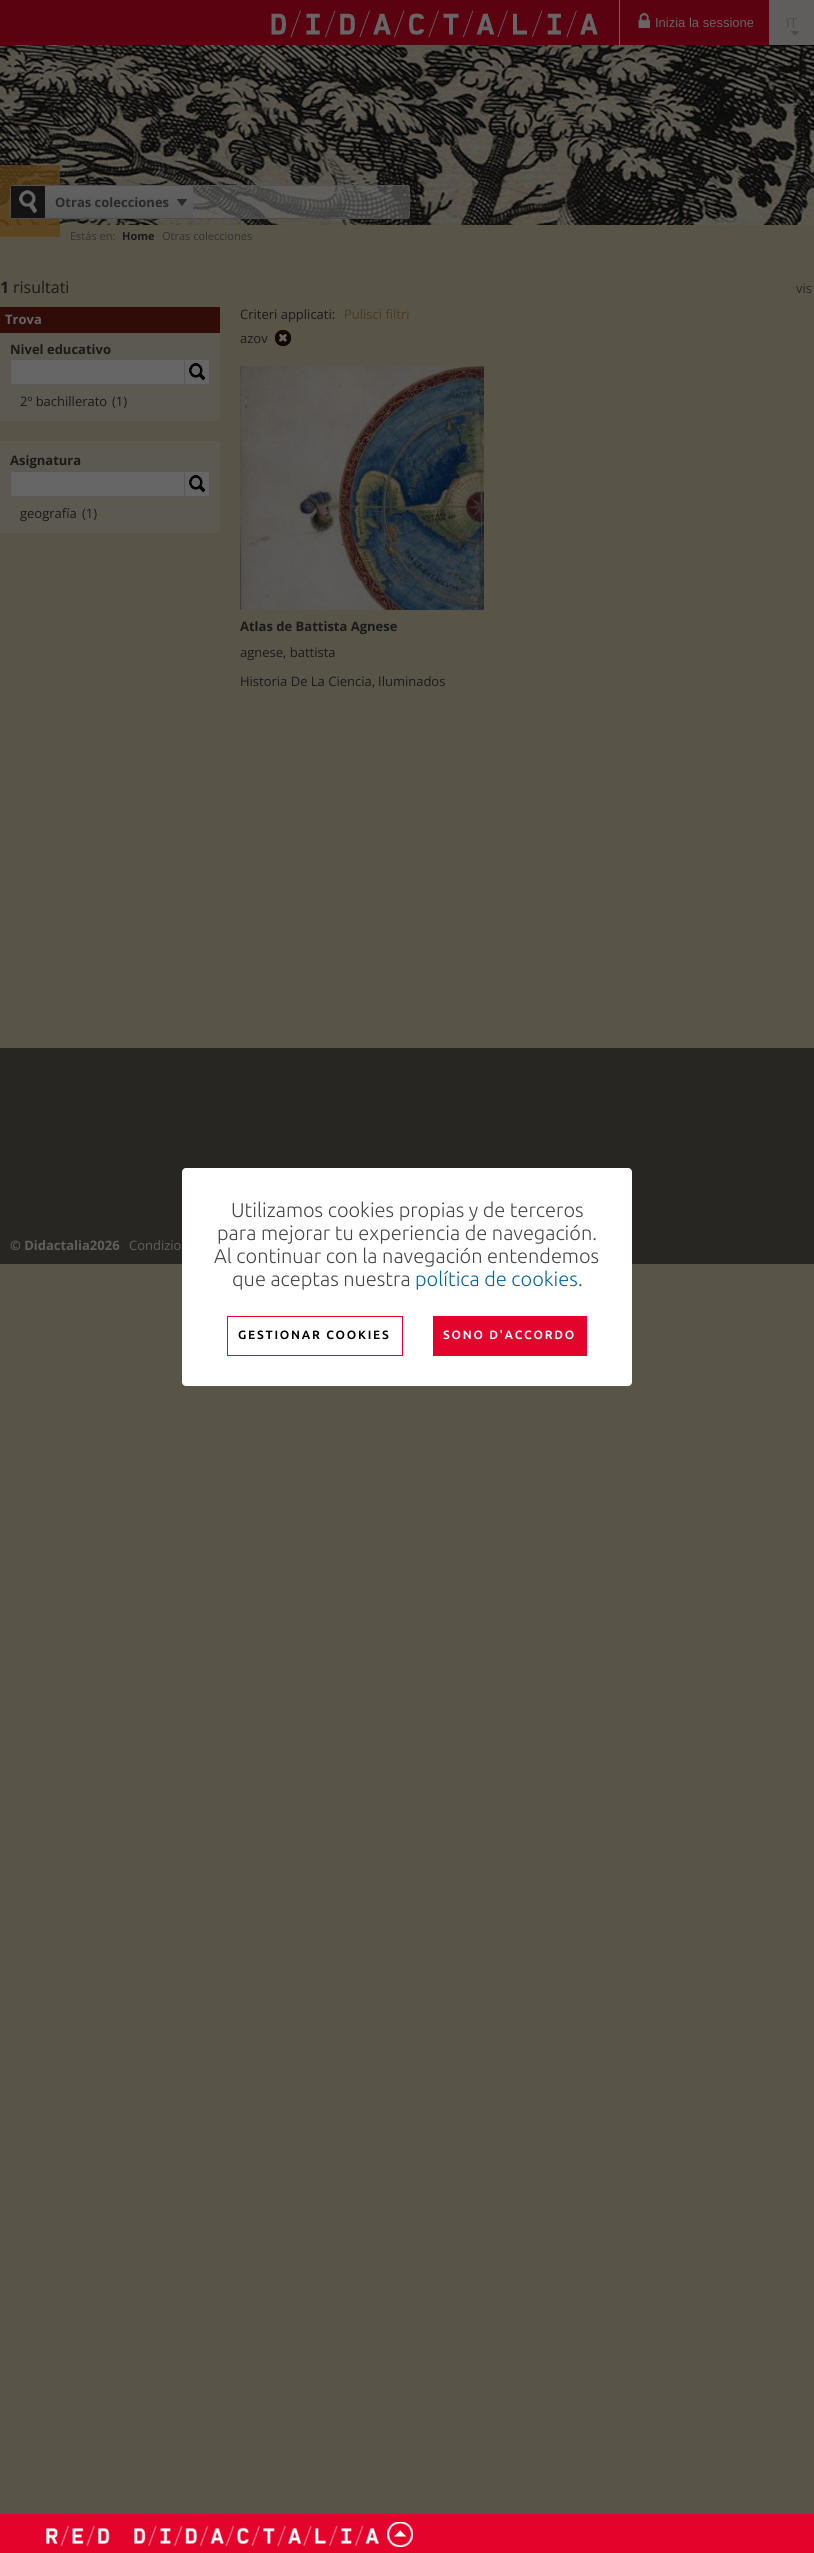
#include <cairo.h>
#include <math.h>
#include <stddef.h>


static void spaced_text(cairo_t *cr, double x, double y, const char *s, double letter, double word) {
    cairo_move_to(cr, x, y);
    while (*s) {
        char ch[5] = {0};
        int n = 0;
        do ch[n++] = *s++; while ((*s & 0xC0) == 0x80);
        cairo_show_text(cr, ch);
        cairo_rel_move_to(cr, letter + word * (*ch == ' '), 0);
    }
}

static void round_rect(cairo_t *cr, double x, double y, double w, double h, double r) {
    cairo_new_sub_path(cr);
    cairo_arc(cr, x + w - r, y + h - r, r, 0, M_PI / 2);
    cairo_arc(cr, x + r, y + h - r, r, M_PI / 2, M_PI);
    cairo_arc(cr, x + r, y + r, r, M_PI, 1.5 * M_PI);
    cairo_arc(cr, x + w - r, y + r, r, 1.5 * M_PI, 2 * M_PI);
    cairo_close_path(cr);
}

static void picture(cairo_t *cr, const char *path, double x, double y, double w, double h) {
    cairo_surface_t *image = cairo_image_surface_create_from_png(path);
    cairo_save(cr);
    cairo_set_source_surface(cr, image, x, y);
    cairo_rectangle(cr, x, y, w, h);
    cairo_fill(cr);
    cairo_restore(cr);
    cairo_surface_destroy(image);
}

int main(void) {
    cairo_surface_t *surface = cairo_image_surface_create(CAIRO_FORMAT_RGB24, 814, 2553);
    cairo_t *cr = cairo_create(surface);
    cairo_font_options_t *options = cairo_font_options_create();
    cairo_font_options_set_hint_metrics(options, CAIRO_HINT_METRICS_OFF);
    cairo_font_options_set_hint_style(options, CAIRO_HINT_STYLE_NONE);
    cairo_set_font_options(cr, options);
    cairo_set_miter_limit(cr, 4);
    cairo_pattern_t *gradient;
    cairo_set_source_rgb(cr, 0.345, 0.329, 0.282);
    cairo_paint(cr);
    cairo_set_source_rgb(cr, 0.357, 0.008, 0.067);
    cairo_rectangle(cr, 0, 0, 769, 45);
    cairo_fill(cr);
    picture(cr, "img1.png", 271, 10, 327, 28);
    cairo_set_source_rgb(cr, 0.4, 0.4, 0.4);
    cairo_rectangle(cr, 619, 0, 1, 45);
    cairo_fill(cr);
    picture(cr, "img2.png", 638, 13, 12, 15);
    cairo_select_font_face(cr, "Liberation Sans", CAIRO_FONT_SLANT_NORMAL, CAIRO_FONT_WEIGHT_NORMAL);
    cairo_set_font_size(cr, 13);
    cairo_move_to(cr, 655, 27);
    cairo_show_text(cr, "Inizia la sessione");
    cairo_set_source_rgb(cr, 0.373, 0.369, 0.361);
    cairo_rectangle(cr, 769, 0, 45, 45);
    cairo_fill(cr);
    cairo_set_source_rgb(cr, 0.29, 0.29, 0.29);
    cairo_move_to(cr, 786, 27);
    cairo_show_text(cr, "IT");
    picture(cr, "img3.png", 791, 31, 8, 5);
    picture(cr, "img4.png", 0, 45, 814, 180);
    cairo_set_source_rgba(cr, 0.357, 0.251, 0.09, 0.8);
    cairo_rectangle(cr, 0, 165, 60, 72);
    cairo_fill(cr);
    cairo_new_path(cr);
    cairo_move_to(cr, 409, 218);
    cairo_line_to(cr, 407, 218.5);
    cairo_line_to(cr, 13, 218.5);
    cairo_line_to(cr, 11, 218);
    cairo_set_source_rgb(cr, 0.294, 0.294, 0.294);
    cairo_set_line_width(cr, 1);
    cairo_stroke(cr);
    cairo_new_path(cr);
    cairo_move_to(cr, 11, 218);
    cairo_curve_to(cr, 10, 216.5, 10, 187.5, 11, 186);
    cairo_line_to(cr, 13, 185.5);
    cairo_line_to(cr, 407, 185.5);
    cairo_line_to(cr, 409, 186);
    cairo_curve_to(cr, 410, 187.5, 410, 216.5, 409, 218);
    cairo_set_source_rgb(cr, 0.322, 0.322, 0.322);
    cairo_stroke(cr);
    cairo_set_source_rgb(cr, 0.078, 0.078, 0.078);
    cairo_rectangle(cr, 11, 186, 34, 32);
    cairo_fill(cr);
    picture(cr, "img5.png", 19, 190, 18, 23);
    gradient = cairo_pattern_create_linear(119, 186, 119, 218);
    cairo_pattern_add_color_stop_rgba(gradient, 0, 0.384, 0.384, 0.384, 1);
    cairo_pattern_add_color_stop_rgba(gradient, 1, 0.349, 0.349, 0.349, 1);
    cairo_set_source(cr, gradient);
    cairo_pattern_destroy(gradient);
    cairo_rectangle(cr, 45, 186, 148, 32);
    cairo_fill(cr);
    cairo_select_font_face(cr, "Open Sans", CAIRO_FONT_SLANT_NORMAL, CAIRO_FONT_WEIGHT_BOLD);
    cairo_set_source_rgb(cr, 0.161, 0.161, 0.161);
    cairo_move_to(cr, 55, 207);
    cairo_show_text(cr, "Otras colecciones");
    picture(cr, "img6.png", 177, 199, 10, 7);
    cairo_set_source_rgba(cr, 0.4, 0.4, 0.4, 0.6);
    cairo_rectangle(cr, 193, 186, 216, 32);
    cairo_fill(cr);
    cairo_select_font_face(cr, "Open Sans", CAIRO_FONT_SLANT_NORMAL, CAIRO_FONT_WEIGHT_NORMAL);
    cairo_set_font_size(cr, 11);
    cairo_set_source_rgb(cr, 0.188, 0.188, 0.188);
    cairo_move_to(cr, 70, 240);
    cairo_show_text(cr, "Estás en:");
    cairo_select_font_face(cr, "Open Sans", CAIRO_FONT_SLANT_NORMAL, CAIRO_FONT_WEIGHT_BOLD);
    cairo_set_source_rgb(cr, 0.102, 0.098, 0.102);
    cairo_move_to(cr, 122, 240);
    cairo_show_text(cr, "Home");
    cairo_select_font_face(cr, "Open Sans", CAIRO_FONT_SLANT_NORMAL, CAIRO_FONT_WEIGHT_NORMAL);
    cairo_set_source_rgb(cr, 0.188, 0.188, 0.188);
    cairo_move_to(cr, 162, 240);
    cairo_show_text(cr, "Otras colecciones");
    cairo_select_font_face(cr, "Open Sans", CAIRO_FONT_SLANT_NORMAL, CAIRO_FONT_WEIGHT_BOLD);
    cairo_set_font_size(cr, 16);
    cairo_set_source_rgb(cr, 0.102, 0.098, 0.102);
    cairo_move_to(cr, 0, 293);
    cairo_show_text(cr, "1");
    cairo_select_font_face(cr, "Open Sans", CAIRO_FONT_SLANT_NORMAL, CAIRO_FONT_WEIGHT_NORMAL);
    cairo_move_to(cr, 13, 293);
    cairo_show_text(cr, "risultati");
    cairo_set_font_size(cr, 13);
    cairo_set_source_rgb(cr, 0.153, 0.149, 0.133);
    cairo_move_to(cr, 796, 293);
    cairo_show_text(cr, "vis");
    cairo_set_source_rgb(cr, 0.184, 0.047, 0.031);
    cairo_rectangle(cr, 0, 307, 220, 26);
    cairo_fill(cr);
    cairo_select_font_face(cr, "Open Sans", CAIRO_FONT_SLANT_NORMAL, CAIRO_FONT_WEIGHT_BOLD);
    cairo_set_source_rgb(cr, 0.4, 0.4, 0.4);
    cairo_move_to(cr, 5, 324);
    cairo_show_text(cr, "Trova");
    cairo_set_source_rgb(cr, 0.357, 0.349, 0.314);
    cairo_rectangle(cr, 0, 333, 220, 88);
    cairo_fill(cr);
    cairo_set_source_rgb(cr, 0.102, 0.098, 0.102);
    cairo_move_to(cr, 10, 354);
    cairo_show_text(cr, "Nivel educativo");
    cairo_set_source_rgb(cr, 0.345, 0.345, 0.345);
    cairo_rectangle(cr, 10, 359, 200, 26);
    cairo_fill(cr);
    cairo_set_source_rgb(cr, 0.4, 0.4, 0.4);
    cairo_rectangle(cr, 11, 360, 173, 24);
    cairo_fill(cr);
    picture(cr, "img7.png", 185, 360, 24, 24);
    cairo_select_font_face(cr, "Open Sans", CAIRO_FONT_SLANT_NORMAL, CAIRO_FONT_WEIGHT_NORMAL);
    cairo_set_source_rgb(cr, 0.102, 0.098, 0.102);
    cairo_move_to(cr, 20, 406);
    cairo_show_text(cr, "2º bachillerato");
    cairo_move_to(cr, 112, 406);
    cairo_show_text(cr, "(1)");
    cairo_set_source_rgb(cr, 0.357, 0.349, 0.314);
    cairo_rectangle(cr, 0, 441, 220, 92);
    cairo_fill(cr);
    cairo_select_font_face(cr, "Open Sans", CAIRO_FONT_SLANT_NORMAL, CAIRO_FONT_WEIGHT_BOLD);
    cairo_set_source_rgb(cr, 0.102, 0.098, 0.102);
    cairo_move_to(cr, 10, 465);
    cairo_show_text(cr, "Asignatura");
    cairo_set_source_rgb(cr, 0.345, 0.345, 0.345);
    cairo_rectangle(cr, 10, 471, 200, 26);
    cairo_fill(cr);
    cairo_set_source_rgb(cr, 0.4, 0.4, 0.4);
    cairo_rectangle(cr, 11, 472, 173, 24);
    cairo_fill(cr);
    picture(cr, "img7.png", 185, 472, 24, 24);
    cairo_select_font_face(cr, "Open Sans", CAIRO_FONT_SLANT_NORMAL, CAIRO_FONT_WEIGHT_NORMAL);
    cairo_set_source_rgb(cr, 0.102, 0.098, 0.102);
    cairo_move_to(cr, 20, 518);
    cairo_show_text(cr, "geografía");
    cairo_move_to(cr, 82, 518);
    cairo_show_text(cr, "(1)");
    cairo_move_to(cr, 240, 319);
    cairo_show_text(cr, "Criteri applicati:");
    cairo_set_source_rgb(cr, 0.267, 0.227, 0.141);
    cairo_move_to(cr, 344, 319);
    cairo_show_text(cr, "Pulisci filtri");
    cairo_set_source_rgb(cr, 0.102, 0.098, 0.102);
    cairo_move_to(cr, 240, 343);
    cairo_show_text(cr, "azov");
    picture(cr, "img8.png", 275, 330, 16, 16);
    picture(cr, "img9.png", 240, 366, 244, 244);
    cairo_select_font_face(cr, "Open Sans", CAIRO_FONT_SLANT_NORMAL, CAIRO_FONT_WEIGHT_BOLD);
    cairo_move_to(cr, 240, 631);
    cairo_show_text(cr, "Atlas de Battista Agnese");
    cairo_select_font_face(cr, "Open Sans", CAIRO_FONT_SLANT_NORMAL, CAIRO_FONT_WEIGHT_NORMAL);
    cairo_move_to(cr, 240, 657);
    cairo_show_text(cr, "agnese, battista");
    cairo_move_to(cr, 240, 686);
    cairo_show_text(cr, "Historia De La Ciencia");
    cairo_move_to(cr, 372, 686);
    cairo_show_text(cr, ",");
    cairo_move_to(cr, 378, 686);
    cairo_show_text(cr, "Iluminados");
    cairo_set_source_rgb(cr, 0.153, 0.149, 0.133);
    cairo_rectangle(cr, 0, 1048, 814, 216);
    cairo_fill(cr);
    cairo_select_font_face(cr, "Open Sans", CAIRO_FONT_SLANT_NORMAL, CAIRO_FONT_WEIGHT_BOLD);
    cairo_set_source_rgb(cr, 0.373, 0.373, 0.373);
    cairo_move_to(cr, 10, 1250);
    cairo_show_text(cr, "© Didactalia2026");
    cairo_select_font_face(cr, "Open Sans", CAIRO_FONT_SLANT_NORMAL, CAIRO_FONT_WEIGHT_NORMAL);
    cairo_move_to(cr, 129, 1250);
    cairo_show_text(cr, "Condizio");
    cairo_set_source_rgb(cr, 1, 1, 1);
    round_rect(cr, 182, 1168, 450, 218, 4);
    cairo_fill(cr);
    cairo_select_font_face(cr, "Ubuntu Light", CAIRO_FONT_SLANT_NORMAL, CAIRO_FONT_WEIGHT_NORMAL);
    cairo_set_font_size(cr, 20);
    cairo_set_source_rgb(cr, 0.267, 0.267, 0.267);
    cairo_move_to(cr, 231, 1217);
    cairo_show_text(cr, "Utilizamos cookies propias y de terceros");
    cairo_move_to(cr, 217, 1240);
    cairo_show_text(cr, "para mejorar tu experiencia de navegación.");
    cairo_move_to(cr, 214, 1263);
    cairo_show_text(cr, "Al continuar con la navegación entendemos");
    cairo_move_to(cr, 232, 1286);
    cairo_show_text(cr, "que aceptas nuestra");
    cairo_set_source_rgb(cr, 0, 0.4, 0.6);
    cairo_move_to(cr, 415, 1286);
    cairo_show_text(cr, "política de cookies");
    cairo_set_source_rgb(cr, 0.267, 0.267, 0.267);
    cairo_move_to(cr, 578, 1286);
    cairo_show_text(cr, ".");
    cairo_rectangle(cr, 227.5, 1316.5, 175, 39);
    cairo_set_source_rgb(cr, 0.894, 0.016, 0.169);
    cairo_stroke(cr);
    cairo_select_font_face(cr, "Ubuntu", CAIRO_FONT_SLANT_NORMAL, CAIRO_FONT_WEIGHT_BOLD);
    cairo_set_font_size(cr, 12);
    cairo_set_source_rgb(cr, 0, 0, 0);
    spaced_text(cr, 238, 1339, "GESTIONAR COOKIES", 1.75, 0);
    cairo_set_source_rgb(cr, 0.894, 0.016, 0.169);
    cairo_rectangle(cr, 433, 1316, 154, 40);
    cairo_fill(cr);
    cairo_set_source_rgb(cr, 1, 1, 1);
    spaced_text(cr, 443, 1339, "SONO D'ACCORDO", 1.75, 0);
    cairo_set_source_rgb(cr, 0.894, 0.016, 0.169);
    cairo_rectangle(cr, 0, 2514, 814, 39);
    cairo_fill(cr);
    picture(cr, "img10.png", 46, 2526, 333, 20);
    picture(cr, "img11.png", 387, 2522, 26, 25);
    cairo_surface_write_to_png(surface, "page.png");
    cairo_font_options_destroy(options);
    cairo_destroy(cr);
    cairo_surface_destroy(surface);
    return 0;
}
